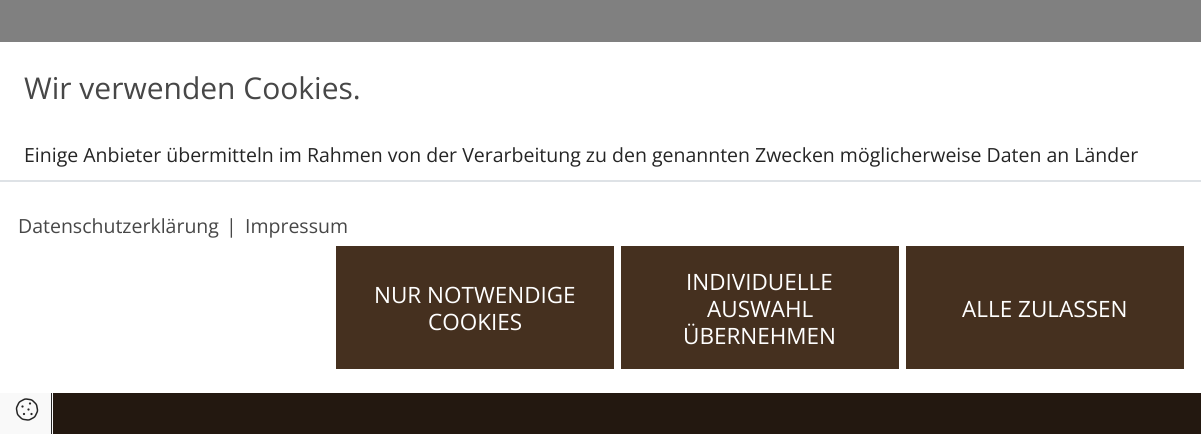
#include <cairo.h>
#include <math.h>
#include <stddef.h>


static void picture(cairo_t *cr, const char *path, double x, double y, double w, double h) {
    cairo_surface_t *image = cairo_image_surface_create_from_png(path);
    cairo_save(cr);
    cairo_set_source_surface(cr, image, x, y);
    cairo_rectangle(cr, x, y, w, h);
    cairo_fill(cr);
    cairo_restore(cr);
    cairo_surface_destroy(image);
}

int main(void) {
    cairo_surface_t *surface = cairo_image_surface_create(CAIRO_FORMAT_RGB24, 1201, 434);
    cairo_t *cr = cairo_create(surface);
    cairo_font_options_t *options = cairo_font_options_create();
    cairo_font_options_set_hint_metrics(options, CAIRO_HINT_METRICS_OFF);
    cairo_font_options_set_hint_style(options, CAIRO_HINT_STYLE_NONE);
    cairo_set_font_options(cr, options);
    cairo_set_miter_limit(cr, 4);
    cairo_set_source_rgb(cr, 0.502, 0.502, 0.502);
    cairo_paint(cr);
    cairo_set_source_rgb(cr, 0.973, 0.973, 0.973);
    cairo_rectangle(cr, 0, 393, 53, 41);
    cairo_fill(cr);
    cairo_set_source_rgb(cr, 0.145, 0.145, 0.145);
    cairo_set_fill_rule(cr, CAIRO_FILL_RULE_EVEN_ODD);
    cairo_new_path(cr);
    cairo_move_to(cr, 0, 382);
    cairo_line_to(cr, 46, 382);
    cairo_curve_to(cr, 50, 382, 52, 385, 52, 388);
    cairo_line_to(cr, 52, 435);
    cairo_line_to(cr, 0, 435);
    cairo_close_path(cr);
    cairo_move_to(cr, 0, 384);
    cairo_line_to(cr, 46, 384);
    cairo_curve_to(cr, 49, 384, 51, 386, 51, 388);
    cairo_line_to(cr, 51, 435);
    cairo_line_to(cr, 0, 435);
    cairo_close_path(cr);
    cairo_fill(cr);
    cairo_set_source_rgb(cr, 1, 1, 1);
    cairo_rectangle(cr, 0, 42, 1201, 351);
    cairo_fill(cr);
    cairo_select_font_face(cr, "Open Sans", CAIRO_FONT_SLANT_NORMAL, CAIRO_FONT_WEIGHT_NORMAL);
    cairo_set_font_size(cr, 30);
    cairo_set_source_rgb(cr, 0.278, 0.278, 0.278);
    cairo_move_to(cr, 24, 99);
    cairo_show_text(cr, "Wir verwenden Cookies.");
    cairo_set_font_size(cr, 19.5);
    cairo_set_source_rgb(cr, 0.145, 0.145, 0.145);
    cairo_move_to(cr, 24, 162);
    cairo_show_text(cr, "Einige Anbieter übermitteln im Rahmen von der Verarbeitung zu den genannten Zwecken möglicherweise Daten an Länder");
    cairo_set_source_rgb(cr, 0.871, 0.886, 0.902);
    cairo_rectangle(cr, 0, 180, 1201, 2);
    cairo_fill(cr);
    cairo_set_source_rgb(cr, 0.278, 0.278, 0.278);
    cairo_move_to(cr, 18, 233);
    cairo_show_text(cr, "Datenschutzerklärung");
    cairo_move_to(cr, 226, 233);
    cairo_show_text(cr, "|");
    cairo_move_to(cr, 245, 233);
    cairo_show_text(cr, "Impressum");
    cairo_set_source_rgb(cr, 0.271, 0.188, 0.122);
    cairo_rectangle(cr, 336, 246, 278, 123);
    cairo_fill(cr);
    cairo_set_font_size(cr, 22.5);
    cairo_set_source_rgb(cr, 1, 1, 1);
    cairo_move_to(cr, 374, 303);
    cairo_show_text(cr, "NUR NOTWENDIGE");
    cairo_move_to(cr, 428, 330);
    cairo_show_text(cr, "COOKIES");
    cairo_set_source_rgb(cr, 0.271, 0.188, 0.122);
    cairo_rectangle(cr, 621, 246, 278, 123);
    cairo_fill(cr);
    cairo_set_source_rgb(cr, 1, 1, 1);
    cairo_move_to(cr, 686, 290);
    cairo_show_text(cr, "INDIVIDUELLE");
    cairo_move_to(cr, 707, 317);
    cairo_show_text(cr, "AUSWAHL");
    cairo_move_to(cr, 683, 344);
    cairo_show_text(cr, "ÜBERNEHMEN");
    cairo_set_source_rgb(cr, 0.271, 0.188, 0.122);
    cairo_rectangle(cr, 906, 246, 278, 123);
    cairo_fill(cr);
    cairo_set_source_rgb(cr, 1, 1, 1);
    cairo_move_to(cr, 962, 317);
    cairo_show_text(cr, "ALLE ZULASSEN");
    picture(cr, "img1.png", 15, 398, 24, 23);
    cairo_set_source_rgb(cr, 0.137, 0.094, 0.063);
    cairo_rectangle(cr, 53, 393, 1148, 41);
    cairo_fill(cr);
    cairo_surface_write_to_png(surface, "page.png");
    cairo_font_options_destroy(options);
    cairo_destroy(cr);
    cairo_surface_destroy(surface);
    return 0;
}
